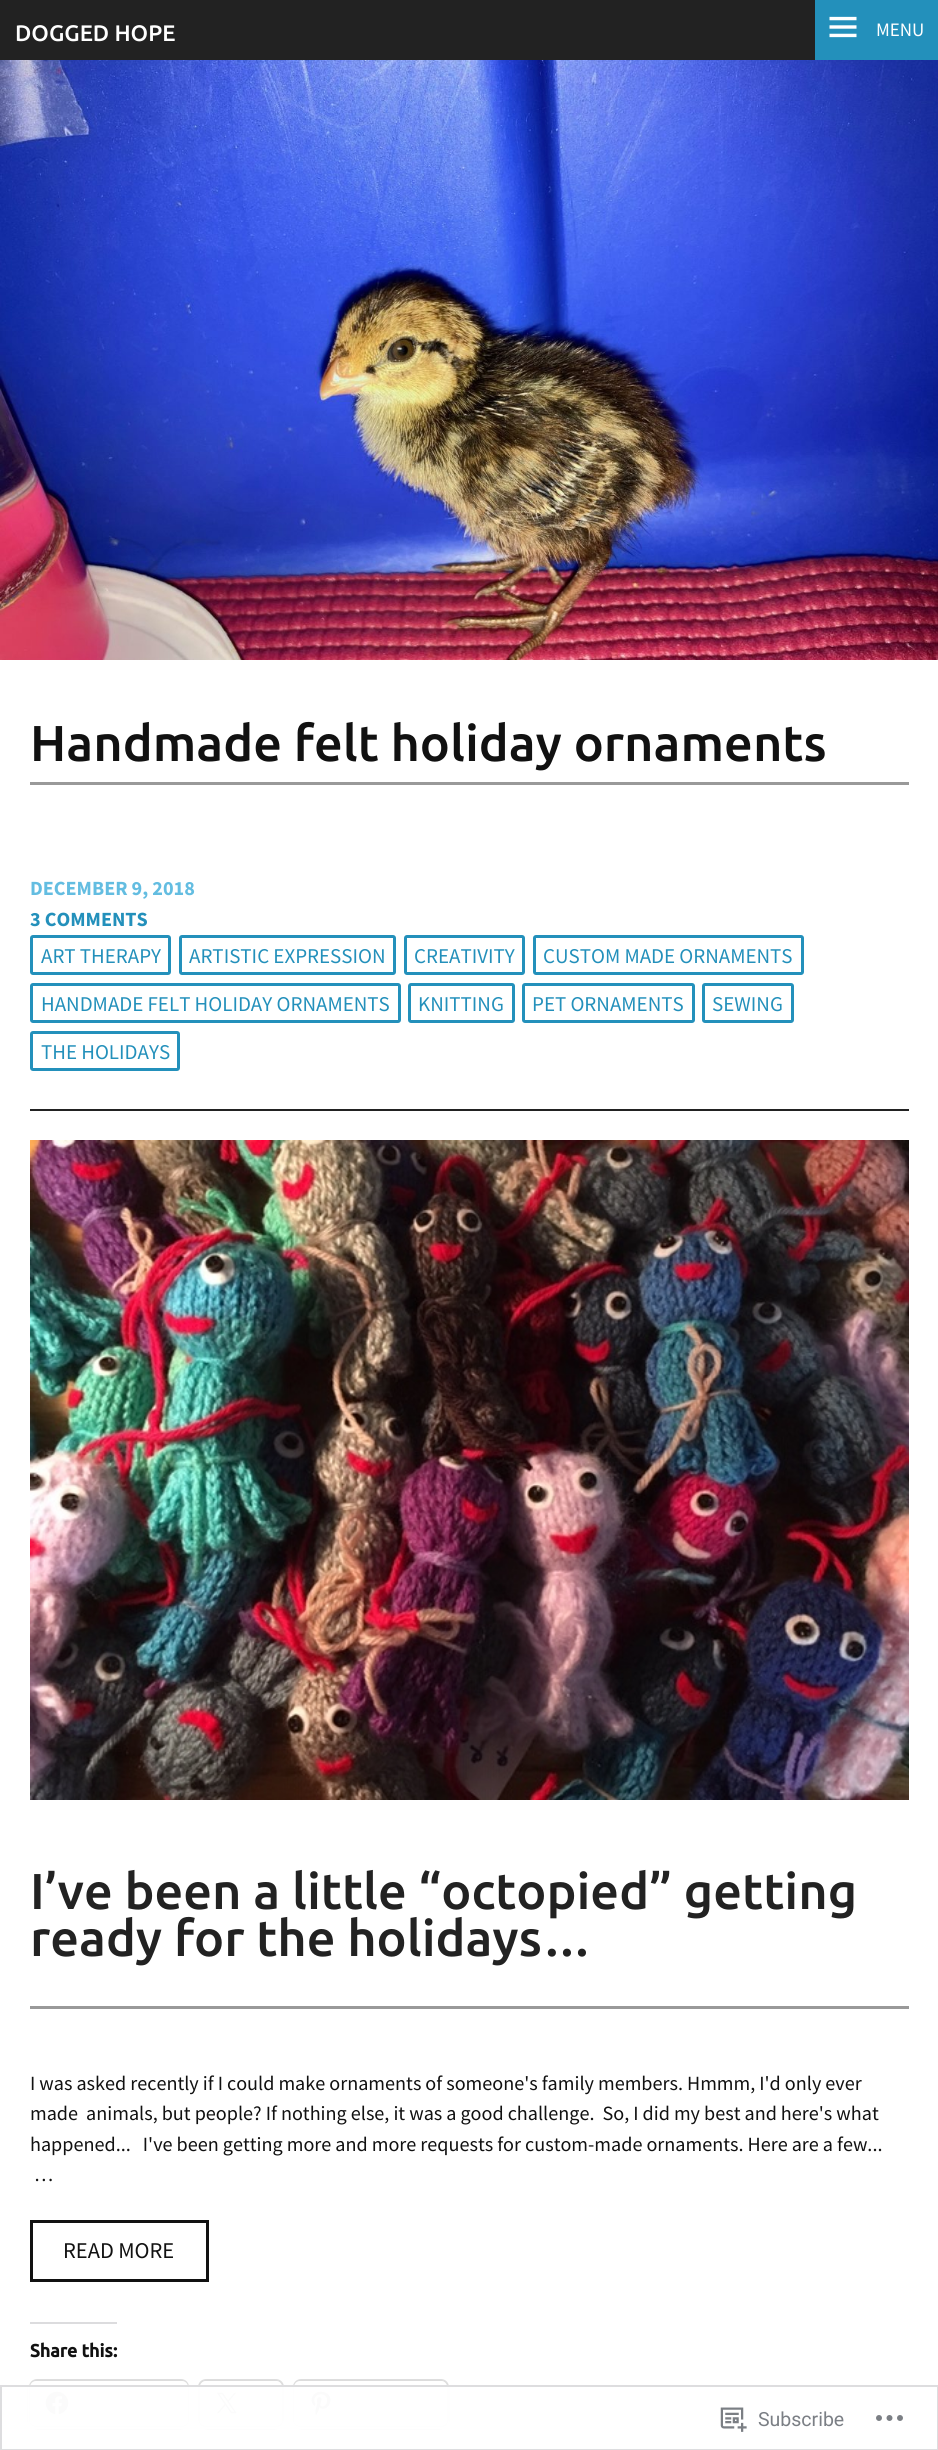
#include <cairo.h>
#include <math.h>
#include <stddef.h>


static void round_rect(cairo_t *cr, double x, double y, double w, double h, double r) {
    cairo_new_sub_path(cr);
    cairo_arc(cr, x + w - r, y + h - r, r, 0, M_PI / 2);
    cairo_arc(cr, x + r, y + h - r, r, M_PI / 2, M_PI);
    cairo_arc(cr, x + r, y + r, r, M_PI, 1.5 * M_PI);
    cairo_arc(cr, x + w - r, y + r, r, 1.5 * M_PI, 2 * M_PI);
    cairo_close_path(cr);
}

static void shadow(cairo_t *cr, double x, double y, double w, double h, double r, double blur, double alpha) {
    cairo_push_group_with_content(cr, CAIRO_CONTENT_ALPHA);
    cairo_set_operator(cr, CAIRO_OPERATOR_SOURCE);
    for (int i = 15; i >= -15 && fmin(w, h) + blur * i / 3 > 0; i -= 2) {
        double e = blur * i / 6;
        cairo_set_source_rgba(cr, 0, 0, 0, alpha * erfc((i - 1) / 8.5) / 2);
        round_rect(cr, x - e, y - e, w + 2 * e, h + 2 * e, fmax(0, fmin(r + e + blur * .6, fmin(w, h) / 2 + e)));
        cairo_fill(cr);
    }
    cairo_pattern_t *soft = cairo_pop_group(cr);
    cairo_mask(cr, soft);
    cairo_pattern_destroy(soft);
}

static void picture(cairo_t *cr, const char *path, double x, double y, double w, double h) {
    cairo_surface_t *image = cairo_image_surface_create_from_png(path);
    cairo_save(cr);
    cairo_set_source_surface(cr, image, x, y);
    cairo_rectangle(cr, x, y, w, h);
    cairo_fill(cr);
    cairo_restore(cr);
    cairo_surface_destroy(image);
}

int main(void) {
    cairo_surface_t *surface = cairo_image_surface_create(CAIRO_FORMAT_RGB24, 938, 2450);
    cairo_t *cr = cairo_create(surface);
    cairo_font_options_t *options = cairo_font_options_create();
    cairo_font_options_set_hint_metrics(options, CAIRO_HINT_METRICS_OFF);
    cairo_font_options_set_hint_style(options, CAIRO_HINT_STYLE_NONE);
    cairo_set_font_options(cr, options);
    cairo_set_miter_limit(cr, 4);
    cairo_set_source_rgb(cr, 1, 1, 1);
    cairo_paint(cr);
    cairo_set_source_rgb(cr, 0.133, 0.133, 0.133);
    cairo_rectangle(cr, 0, 0, 815, 60);
    cairo_fill(cr);
    cairo_select_font_face(cr, "Ubuntu Medium", CAIRO_FONT_SLANT_NORMAL, CAIRO_FONT_WEIGHT_NORMAL);
    cairo_set_font_size(cr, 22.5);
    cairo_set_source_rgb(cr, 1, 1, 1);
    cairo_move_to(cr, 15, 41);
    cairo_show_text(cr, "DOGGED HOPE");
    cairo_set_source_rgb(cr, 0.137, 0.565, 0.733);
    cairo_rectangle(cr, 815, 0, 123, 60);
    cairo_fill(cr);
    picture(cr, "img1.png", 829, 16, 28, 22);
    cairo_select_font_face(cr, "Source Sans Pro", CAIRO_FONT_SLANT_NORMAL, CAIRO_FONT_WEIGHT_NORMAL);
    cairo_set_font_size(cr, 19);
    cairo_set_source_rgb(cr, 1, 1, 1);
    cairo_move_to(cr, 876, 36);
    cairo_show_text(cr, "MENU");
    picture(cr, "img2.png", 0, 60, 938, 600);
    cairo_set_source_rgb(cr, 0.6, 0.6, 0.6);
    cairo_rectangle(cr, 30, 782, 879, 3);
    cairo_fill(cr);
    cairo_select_font_face(cr, "Ubuntu Medium", CAIRO_FONT_SLANT_NORMAL, CAIRO_FONT_WEIGHT_NORMAL);
    cairo_set_font_size(cr, 50.4);
    cairo_set_source_rgb(cr, 0.067, 0.067, 0.067);
    cairo_move_to(cr, 30, 761);
    cairo_show_text(cr, "Handmade felt holiday ornaments");
    cairo_set_source_rgb(cr, 0.133, 0.133, 0.133);
    cairo_rectangle(cr, 30, 1109, 879, 2);
    cairo_fill(cr);
    cairo_select_font_face(cr, "Source Sans Pro", CAIRO_FONT_SLANT_NORMAL, CAIRO_FONT_WEIGHT_BOLD);
    cairo_set_font_size(cr, 20.15);
    cairo_set_source_rgb(cr, 0.388, 0.741, 0.882);
    cairo_move_to(cr, 30, 895);
    cairo_show_text(cr, "DECEMBER 9, 2018");
    cairo_set_source_rgb(cr, 0.137, 0.565, 0.733);
    cairo_move_to(cr, 30, 926);
    cairo_show_text(cr, "3 COMMENTS");
    round_rect(cr, 31.5, 936.5, 138, 37, 1.5);
    cairo_set_line_width(cr, 3);
    cairo_stroke(cr);
    cairo_select_font_face(cr, "Source Sans Pro", CAIRO_FONT_SLANT_NORMAL, CAIRO_FONT_WEIGHT_NORMAL);
    cairo_set_font_size(cr, 21);
    cairo_move_to(cr, 41, 963);
    cairo_show_text(cr, "ART THERAPY");
    round_rect(cr, 180.5, 936.5, 214, 37, 1.5);
    cairo_stroke(cr);
    cairo_move_to(cr, 189, 963);
    cairo_show_text(cr, "ARTISTIC EXPRESSION");
    round_rect(cr, 405.5, 936.5, 118, 37, 1.5);
    cairo_stroke(cr);
    cairo_move_to(cr, 414, 963);
    cairo_show_text(cr, "CREATIVITY");
    round_rect(cr, 534.5, 936.5, 268, 37, 1.5);
    cairo_stroke(cr);
    cairo_move_to(cr, 543, 963);
    cairo_show_text(cr, "CUSTOM MADE ORNAMENTS");
    round_rect(cr, 31.5, 984.5, 368, 37, 1.5);
    cairo_stroke(cr);
    cairo_move_to(cr, 41, 1011);
    cairo_show_text(cr, "HANDMADE FELT HOLIDAY ORNAMENTS");
    round_rect(cr, 409.5, 984.5, 104, 37, 1.5);
    cairo_stroke(cr);
    cairo_move_to(cr, 418, 1011);
    cairo_show_text(cr, "KNITTING");
    round_rect(cr, 523.5, 984.5, 170, 37, 1.5);
    cairo_stroke(cr);
    cairo_move_to(cr, 532, 1011);
    cairo_show_text(cr, "PET ORNAMENTS");
    round_rect(cr, 703.5, 984.5, 89, 37, 1.5);
    cairo_stroke(cr);
    cairo_move_to(cr, 712, 1011);
    cairo_show_text(cr, "SEWING");
    round_rect(cr, 31.5, 1032.5, 147, 37, 1.5);
    cairo_stroke(cr);
    cairo_move_to(cr, 41, 1059);
    cairo_show_text(cr, "THE HOLIDAYS");
    picture(cr, "img3.png", 30, 1140, 879, 660);
    cairo_set_source_rgb(cr, 0.6, 0.6, 0.6);
    cairo_rectangle(cr, 30, 2006, 879, 3);
    cairo_fill(cr);
    cairo_select_font_face(cr, "Ubuntu Medium", CAIRO_FONT_SLANT_NORMAL, CAIRO_FONT_WEIGHT_NORMAL);
    cairo_set_font_size(cr, 50.4);
    cairo_set_source_rgb(cr, 0.133, 0.133, 0.133);
    cairo_move_to(cr, 30, 1909);
    cairo_show_text(cr, "I’ve been a little “octopied” getting");
    cairo_move_to(cr, 30, 1956);
    cairo_show_text(cr, "ready for the holidays…");
    cairo_select_font_face(cr, "Source Sans Pro", CAIRO_FONT_SLANT_NORMAL, CAIRO_FONT_WEIGHT_NORMAL);
    cairo_set_font_size(cr, 20.15);
    cairo_set_source_rgb(cr, 0.067, 0.067, 0.067);
    cairo_move_to(cr, 30, 2090);
    cairo_show_text(cr, "I was asked recently if I could make ornaments of someone's family members. Hmmm, I'd only ever");
    cairo_move_to(cr, 30, 2120);
    cairo_show_text(cr, "made  animals, but people? If nothing else, it was a good challenge.  So, I did my best and here's what");
    cairo_move_to(cr, 30, 2151);
    cairo_show_text(cr, "happened...   I've been getting more and more requests for custom-made ornaments. Here are a few...");
    cairo_move_to(cr, 34, 2181);
    cairo_show_text(cr, "…");
    cairo_rectangle(cr, 31.5, 2221.5, 176, 59);
    cairo_stroke(cr);
    cairo_set_font_size(cr, 22.5);
    cairo_move_to(cr, 63, 2258);
    cairo_show_text(cr, "READ MORE");
    cairo_set_source_rgb(cr, 0.863, 0.863, 0.871);
    cairo_rectangle(cr, 30, 2322, 87, 2);
    cairo_fill(cr);
    cairo_select_font_face(cr, "Ubuntu", CAIRO_FONT_SLANT_NORMAL, CAIRO_FONT_WEIGHT_BOLD);
    cairo_set_font_size(cr, 18);
    cairo_set_source_rgb(cr, 0.067, 0.067, 0.067);
    cairo_move_to(cr, 30, 2357);
    cairo_show_text(cr, "Share this:");
    round_rect(cr, 30, 2380, 158, 46, 7);
    cairo_set_source_rgb(cr, 0.878, 0.878, 0.878);
    cairo_set_line_width(cr, 2);
    cairo_stroke(cr);
    cairo_set_source_rgb(cr, 0, 0, 0);
    shadow(cr, 30, 2382, 158, 45, 6, 1.5, 0.12);
    cairo_set_source_rgb(cr, 1, 1, 1);
    round_rect(cr, 30, 2381, 158, 45, 6);
    cairo_fill(cr);
    picture(cr, "img4.png", 45, 2391, 24, 23);
    round_rect(cr, 199, 2380, 84, 46, 7);
    cairo_set_source_rgb(cr, 0.878, 0.878, 0.878);
    cairo_stroke(cr);
    cairo_set_source_rgb(cr, 0, 0, 0);
    shadow(cr, 200, 2382, 82, 45, 6, 1.5, 0.12);
    cairo_set_source_rgb(cr, 1, 1, 1);
    round_rect(cr, 200, 2381, 82, 45, 6);
    cairo_fill(cr);
    picture(cr, "img5.png", 217, 2392, 20, 22);
    round_rect(cr, 294, 2380, 154, 46, 7);
    cairo_set_source_rgb(cr, 0.878, 0.878, 0.878);
    cairo_stroke(cr);
    cairo_set_source_rgb(cr, 0, 0, 0);
    shadow(cr, 294, 2382, 153, 45, 6, 1.5, 0.12);
    cairo_set_source_rgb(cr, 1, 1, 1);
    round_rect(cr, 294, 2381, 153, 45, 6);
    cairo_fill(cr);
    picture(cr, "img6.png", 311, 2391, 20, 24);
    cairo_set_source_rgba(cr, 1, 1, 1, 0.98);
    cairo_rectangle(cr, 28, 2387, 421, 42);
    cairo_fill(cr);
    cairo_rectangle(cr, 1, 2386, 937, 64);
    cairo_set_source_rgb(cr, 0.867, 0.867, 0.875);
    cairo_stroke(cr);
    picture(cr, "img7.png", 720, 2407, 27, 25);
    cairo_select_font_face(cr, "Roboto", CAIRO_FONT_SLANT_NORMAL, CAIRO_FONT_WEIGHT_NORMAL);
    cairo_set_font_size(cr, 19.5);
    cairo_set_source_rgb(cr, 0.482, 0.498, 0.522);
    cairo_move_to(cr, 758, 2426);
    cairo_show_text(cr, "Subscribe");
    picture(cr, "img8.png", 876, 2415, 27, 6);
    cairo_surface_write_to_png(surface, "page.png");
    cairo_font_options_destroy(options);
    cairo_destroy(cr);
    cairo_surface_destroy(surface);
    return 0;
}
